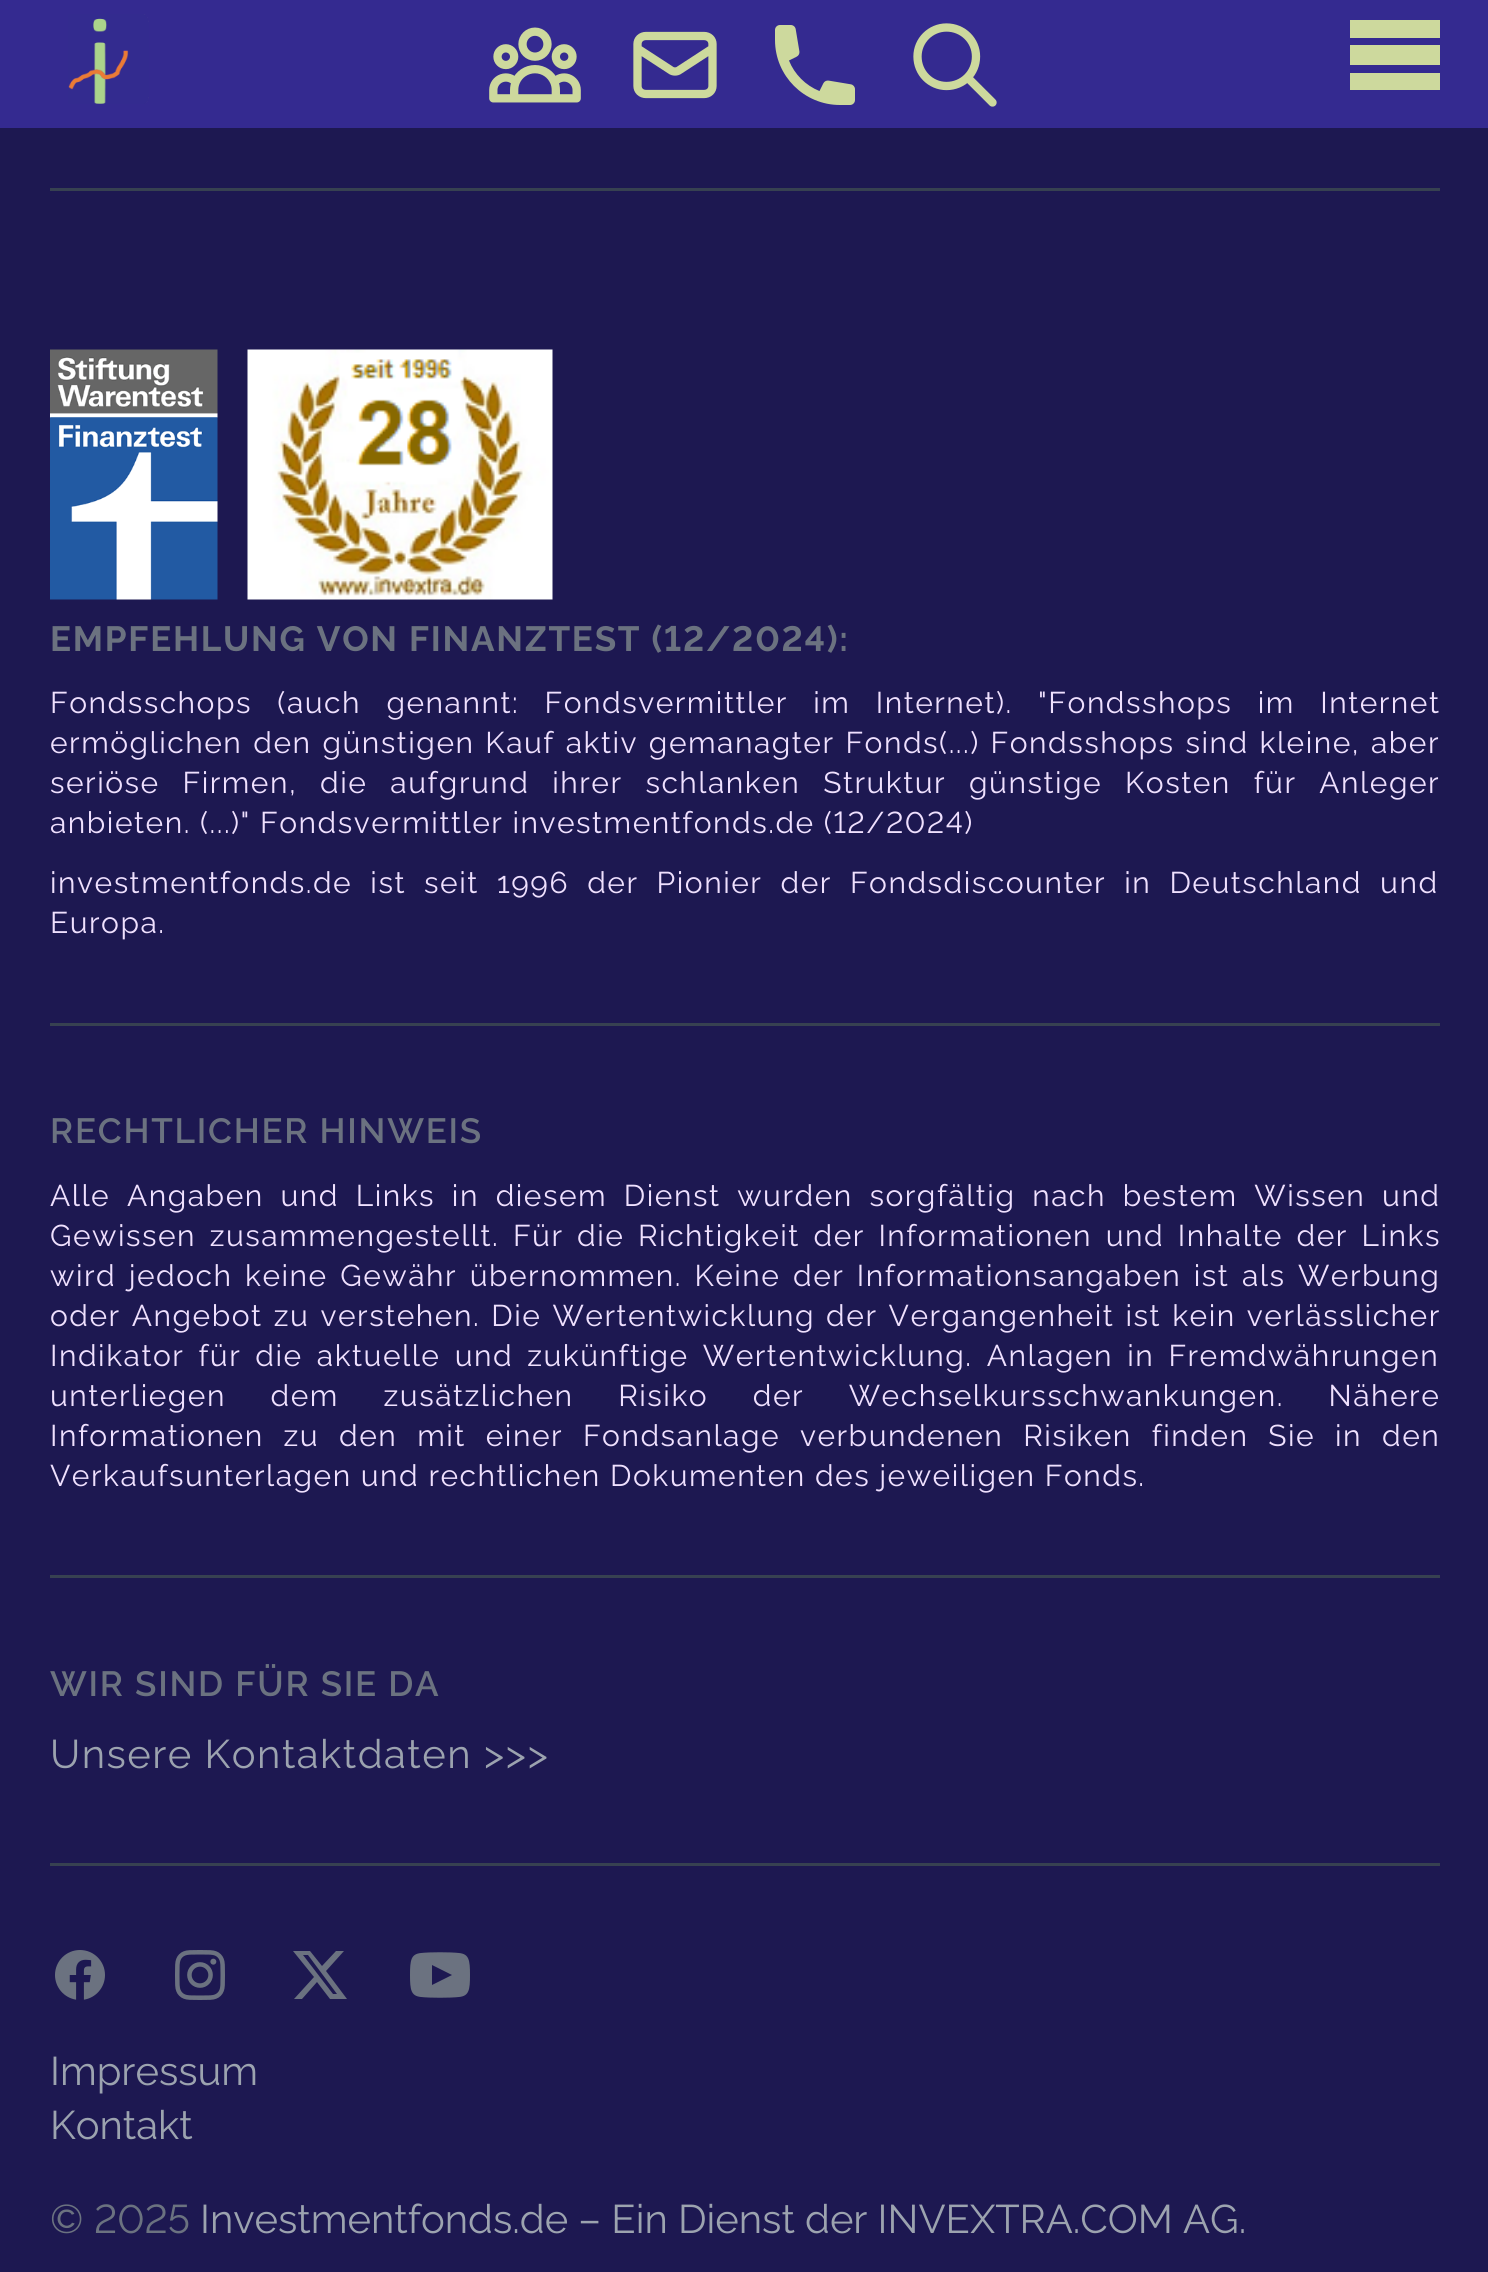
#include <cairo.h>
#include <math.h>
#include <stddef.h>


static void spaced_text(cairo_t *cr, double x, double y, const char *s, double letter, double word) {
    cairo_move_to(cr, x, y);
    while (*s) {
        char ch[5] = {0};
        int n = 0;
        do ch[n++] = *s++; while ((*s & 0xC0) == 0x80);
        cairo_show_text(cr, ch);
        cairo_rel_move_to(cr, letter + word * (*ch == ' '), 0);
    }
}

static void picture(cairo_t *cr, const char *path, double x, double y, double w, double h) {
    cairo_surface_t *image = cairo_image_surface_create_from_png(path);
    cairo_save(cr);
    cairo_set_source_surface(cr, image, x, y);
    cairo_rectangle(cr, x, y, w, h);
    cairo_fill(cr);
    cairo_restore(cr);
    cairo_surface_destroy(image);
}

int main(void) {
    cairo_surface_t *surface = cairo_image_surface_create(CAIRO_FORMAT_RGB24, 1488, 2272);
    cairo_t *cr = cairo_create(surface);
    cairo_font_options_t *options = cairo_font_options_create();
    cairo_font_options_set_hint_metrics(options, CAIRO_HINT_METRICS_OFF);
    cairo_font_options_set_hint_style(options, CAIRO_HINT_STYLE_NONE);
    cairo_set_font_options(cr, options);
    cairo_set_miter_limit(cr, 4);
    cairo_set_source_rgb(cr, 0.114, 0.094, 0.318);
    cairo_paint(cr);
    cairo_set_source_rgb(cr, 0.204, 0.165, 0.565);
    cairo_rectangle(cr, 0, 0, 1488, 128);
    cairo_fill(cr);
    picture(cr, "img1.png", 68, 14, 81, 90);
    picture(cr, "img2.png", 489, 27, 92, 76);
    cairo_new_path(cr);
    cairo_move_to(cr, 637.5, 48.5);
    cairo_line_to(cr, 670.5, 70);
    cairo_curve_to(cr, 673, 72, 677, 72, 679.5, 70);
    cairo_line_to(cr, 712.5, 48.5);
    cairo_move_to(cr, 646, 94);
    cairo_line_to(cr, 704, 94);
    cairo_curve_to(cr, 709, 94, 712.5, 90.5, 712.5, 86);
    cairo_line_to(cr, 712.5, 44);
    cairo_curve_to(cr, 712.5, 39.5, 709, 36, 704, 36);
    cairo_line_to(cr, 646, 36);
    cairo_curve_to(cr, 641, 36, 637.5, 39.5, 637.5, 44);
    cairo_line_to(cr, 637.5, 86);
    cairo_curve_to(cr, 637.5, 90.5, 641, 94, 646, 94);
    cairo_close_path(cr);
    cairo_set_source_rgb(cr, 0.804, 0.851, 0.616);
    cairo_set_line_width(cr, 8.3);
    cairo_set_line_cap(cr, CAIRO_LINE_CAP_ROUND);
    cairo_set_line_join(cr, CAIRO_LINE_JOIN_ROUND);
    cairo_stroke(cr);
    picture(cr, "img3.png", 775, 25, 80, 80);
    cairo_new_path(cr);
    cairo_move_to(cr, 992.5, 102.5);
    cairo_line_to(cr, 967.5, 77.5);
    cairo_move_to(cr, 976, 56.5);
    cairo_curve_to(cr, 976, 73, 963, 86, 946.5, 86);
    cairo_curve_to(cr, 930.5, 86, 917.5, 73, 917.5, 56.5);
    cairo_curve_to(cr, 917.5, 40.5, 930.5, 27.5, 946.5, 27.5);
    cairo_curve_to(cr, 963, 27.5, 976, 40.5, 976, 56.5);
    cairo_close_path(cr);
    cairo_stroke(cr);
    cairo_rectangle(cr, 1350, 20, 90, 18);
    cairo_fill(cr);
    cairo_rectangle(cr, 1350, 45, 90, 20);
    cairo_fill(cr);
    cairo_rectangle(cr, 1350, 73, 90, 17);
    cairo_fill(cr);
    cairo_set_source_rgb(cr, 0.216, 0.255, 0.318);
    cairo_rectangle(cr, 50, 188, 1390, 3);
    cairo_fill(cr);
    picture(cr, "img4.png", 50, 349, 168, 251);
    picture(cr, "img5.png", 247, 349, 306, 251);
    cairo_select_font_face(cr, "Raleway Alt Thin", CAIRO_FONT_SLANT_NORMAL, CAIRO_FONT_WEIGHT_NORMAL);
    cairo_set_font_size(cr, 35);
    cairo_set_source_rgb(cr, 0.42, 0.447, 0.502);
    spaced_text(cr, 50, 651, "EMPFEHLUNG VON FINANZTEST (12/2024):", 1.75, 0);
    cairo_select_font_face(cr, "Raleway Thin", CAIRO_FONT_SLANT_NORMAL, CAIRO_FONT_WEIGHT_NORMAL);
    cairo_set_font_size(cr, 30);
    cairo_set_source_rgb(cr, 0.937, 0.878, 0.996);
    spaced_text(cr, 50, 713, "Fondsschops (auch genannt: Fondsvermittler im Internet). \"Fondsshops im Internet", 1.5, 16.25);
    spaced_text(cr, 50, 753, "ermöglichen den günstigen Kauf aktiv gemanagter Fonds(...) Fondsshops sind kleine, aber", 1.5, 1.75);
    spaced_text(cr, 50, 793, "seriöse Firmen, die aufgrund ihrer schlanken Struktur günstige Kosten für Anleger", 1.5, 13.75);
    cairo_select_font_face(cr, "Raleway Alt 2 Thin", CAIRO_FONT_SLANT_NORMAL, CAIRO_FONT_WEIGHT_NORMAL);
    spaced_text(cr, 50, 833, "anbieten. (...)\" Fondsvermittler investmentfonds.de (12/2024)", 1.5, 0);
    cairo_select_font_face(cr, "Raleway Thin", CAIRO_FONT_SLANT_NORMAL, CAIRO_FONT_WEIGHT_NORMAL);
    spaced_text(cr, 50, 893, "investmentfonds.de ist seit 1996 der Pionier der Fondsdiscounter in Deutschland und", 1.5, 9);
    spaced_text(cr, 50, 933, "Europa.", 1.5, 0);
    cairo_set_source_rgb(cr, 0.216, 0.255, 0.318);
    cairo_rectangle(cr, 50, 1023, 1390, 3);
    cairo_fill(cr);
    cairo_select_font_face(cr, "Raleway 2 Thin", CAIRO_FONT_SLANT_NORMAL, CAIRO_FONT_WEIGHT_NORMAL);
    cairo_set_font_size(cr, 35);
    cairo_set_source_rgb(cr, 0.42, 0.447, 0.502);
    spaced_text(cr, 50, 1143, "RECHTLICHER HINWEIS", 1.75, 0);
    cairo_select_font_face(cr, "Raleway Thin", CAIRO_FONT_SLANT_NORMAL, CAIRO_FONT_WEIGHT_NORMAL);
    cairo_set_font_size(cr, 30);
    cairo_set_source_rgb(cr, 0.937, 0.878, 0.996);
    spaced_text(cr, 50, 1206, "Alle Angaben und Links in diesem Dienst wurden sorgfältig nach bestem Wissen und", 1.5, 7.6);
    spaced_text(cr, 50, 1246, "Gewissen zusammengestellt. Für die Richtigkeit der Informationen und Inhalte der Links", 1.5, 4.5);
    spaced_text(cr, 50, 1286, "wird jedoch keine Gewähr übernommen. Keine der Informationsangaben ist als Werbung", 1.5, 3.4);
    spaced_text(cr, 50, 1326, "oder Angebot zu verstehen. Die Wertentwicklung der Vergangenheit ist kein verlässlicher", 1.5, 2);
    spaced_text(cr, 50, 1366, "Indikator für die aktuelle und zukünftige Wertentwicklung. Anlagen in Fremdwährungen", 1.5, 5);
    spaced_text(cr, 50, 1406, "unterliegen dem zusätzlichen Risiko der Wechselkursschwankungen. Nähere", 1.5, 35.5);
    spaced_text(cr, 50, 1446, "Informationen zu den mit einer Fondsanlage verbundenen Risiken finden Sie in den", 1.5, 10.75);
    spaced_text(cr, 50, 1486, "Verkaufsunterlagen und rechtlichen Dokumenten des jeweiligen Fonds.", 1.5, 0);
    cairo_set_source_rgb(cr, 0.216, 0.255, 0.318);
    cairo_rectangle(cr, 50, 1575, 1390, 3);
    cairo_fill(cr);
    cairo_select_font_face(cr, "Raleway 2 Thin", CAIRO_FONT_SLANT_NORMAL, CAIRO_FONT_WEIGHT_NORMAL);
    cairo_set_font_size(cr, 35);
    cairo_set_source_rgb(cr, 0.42, 0.447, 0.502);
    spaced_text(cr, 50, 1696, "WIR SIND FÜR SIE DA", 1.75, 0);
    cairo_select_font_face(cr, "Raleway Thin", CAIRO_FONT_SLANT_NORMAL, CAIRO_FONT_WEIGHT_NORMAL);
    cairo_set_font_size(cr, 40);
    cairo_set_source_rgb(cr, 0.612, 0.639, 0.686);
    spaced_text(cr, 50, 1768, "Unsere Kontaktdaten >>>", 1.5, 0);
    cairo_set_source_rgb(cr, 0.216, 0.255, 0.318);
    cairo_rectangle(cr, 50, 1863, 1390, 3);
    cairo_fill(cr);
    picture(cr, "img6.png", 55, 1950, 50, 50);
    picture(cr, "img7.png", 175, 1950, 50, 50);
    cairo_set_source_rgb(cr, 0.42, 0.447, 0.502);
    cairo_new_path(cr);
    cairo_move_to(cr, 336, 1951);
    cairo_line_to(cr, 344, 1951);
    cairo_line_to(cr, 326, 1971);
    cairo_line_to(cr, 347, 1999);
    cairo_line_to(cr, 330, 1999);
    cairo_line_to(cr, 317, 1982);
    cairo_line_to(cr, 302, 1999);
    cairo_line_to(cr, 294, 1999);
    cairo_line_to(cr, 314, 1977);
    cairo_line_to(cr, 293, 1951);
    cairo_line_to(cr, 310, 1951);
    cairo_line_to(cr, 322, 1966);
    cairo_close_path(cr);
    cairo_move_to(cr, 333, 1994);
    cairo_line_to(cr, 337, 1994);
    cairo_line_to(cr, 308, 1955);
    cairo_line_to(cr, 303, 1955);
    cairo_close_path(cr);
    cairo_fill(cr);
    cairo_new_path(cr);
    cairo_move_to(cr, 459, 1953);
    cairo_curve_to(cr, 450, 1952, 430, 1952, 421, 1953);
    cairo_curve_to(cr, 411, 1954, 410, 1960, 410, 1975);
    cairo_curve_to(cr, 410, 1990, 411, 1996, 421, 1997);
    cairo_curve_to(cr, 430, 1998, 450, 1998, 459, 1997);
    cairo_curve_to(cr, 469, 1996, 470, 1990, 470, 1975);
    cairo_curve_to(cr, 470, 1960, 469, 1954, 459, 1953);
    cairo_close_path(cr);
    cairo_move_to(cr, 432, 1985);
    cairo_line_to(cr, 432, 1965);
    cairo_line_to(cr, 452, 1975);
    cairo_close_path(cr);
    cairo_fill(cr);
    cairo_set_source_rgb(cr, 0.612, 0.639, 0.686);
    cairo_move_to(cr, 50, 2085);
    cairo_show_text(cr, "Impressum");
    cairo_move_to(cr, 50, 2139);
    cairo_show_text(cr, "Kontakt");
    cairo_set_source_rgb(cr, 0.42, 0.447, 0.502);
    cairo_move_to(cr, 50, 2233);
    cairo_show_text(cr, "©");
    cairo_select_font_face(cr, "Raleway Alt 2 Thin", CAIRO_FONT_SLANT_NORMAL, CAIRO_FONT_WEIGHT_NORMAL);
    cairo_move_to(cr, 94, 2233);
    cairo_show_text(cr, "2025");
    cairo_select_font_face(cr, "Raleway Thin", CAIRO_FONT_SLANT_NORMAL, CAIRO_FONT_WEIGHT_NORMAL);
    cairo_set_source_rgb(cr, 0.612, 0.639, 0.686);
    cairo_move_to(cr, 200, 2233);
    cairo_show_text(cr, "Investmentfonds.de – Ein Dienst der INVEXTRA.COM AG.");
    cairo_surface_write_to_png(surface, "page.png");
    cairo_font_options_destroy(options);
    cairo_destroy(cr);
    cairo_surface_destroy(surface);
    return 0;
}
